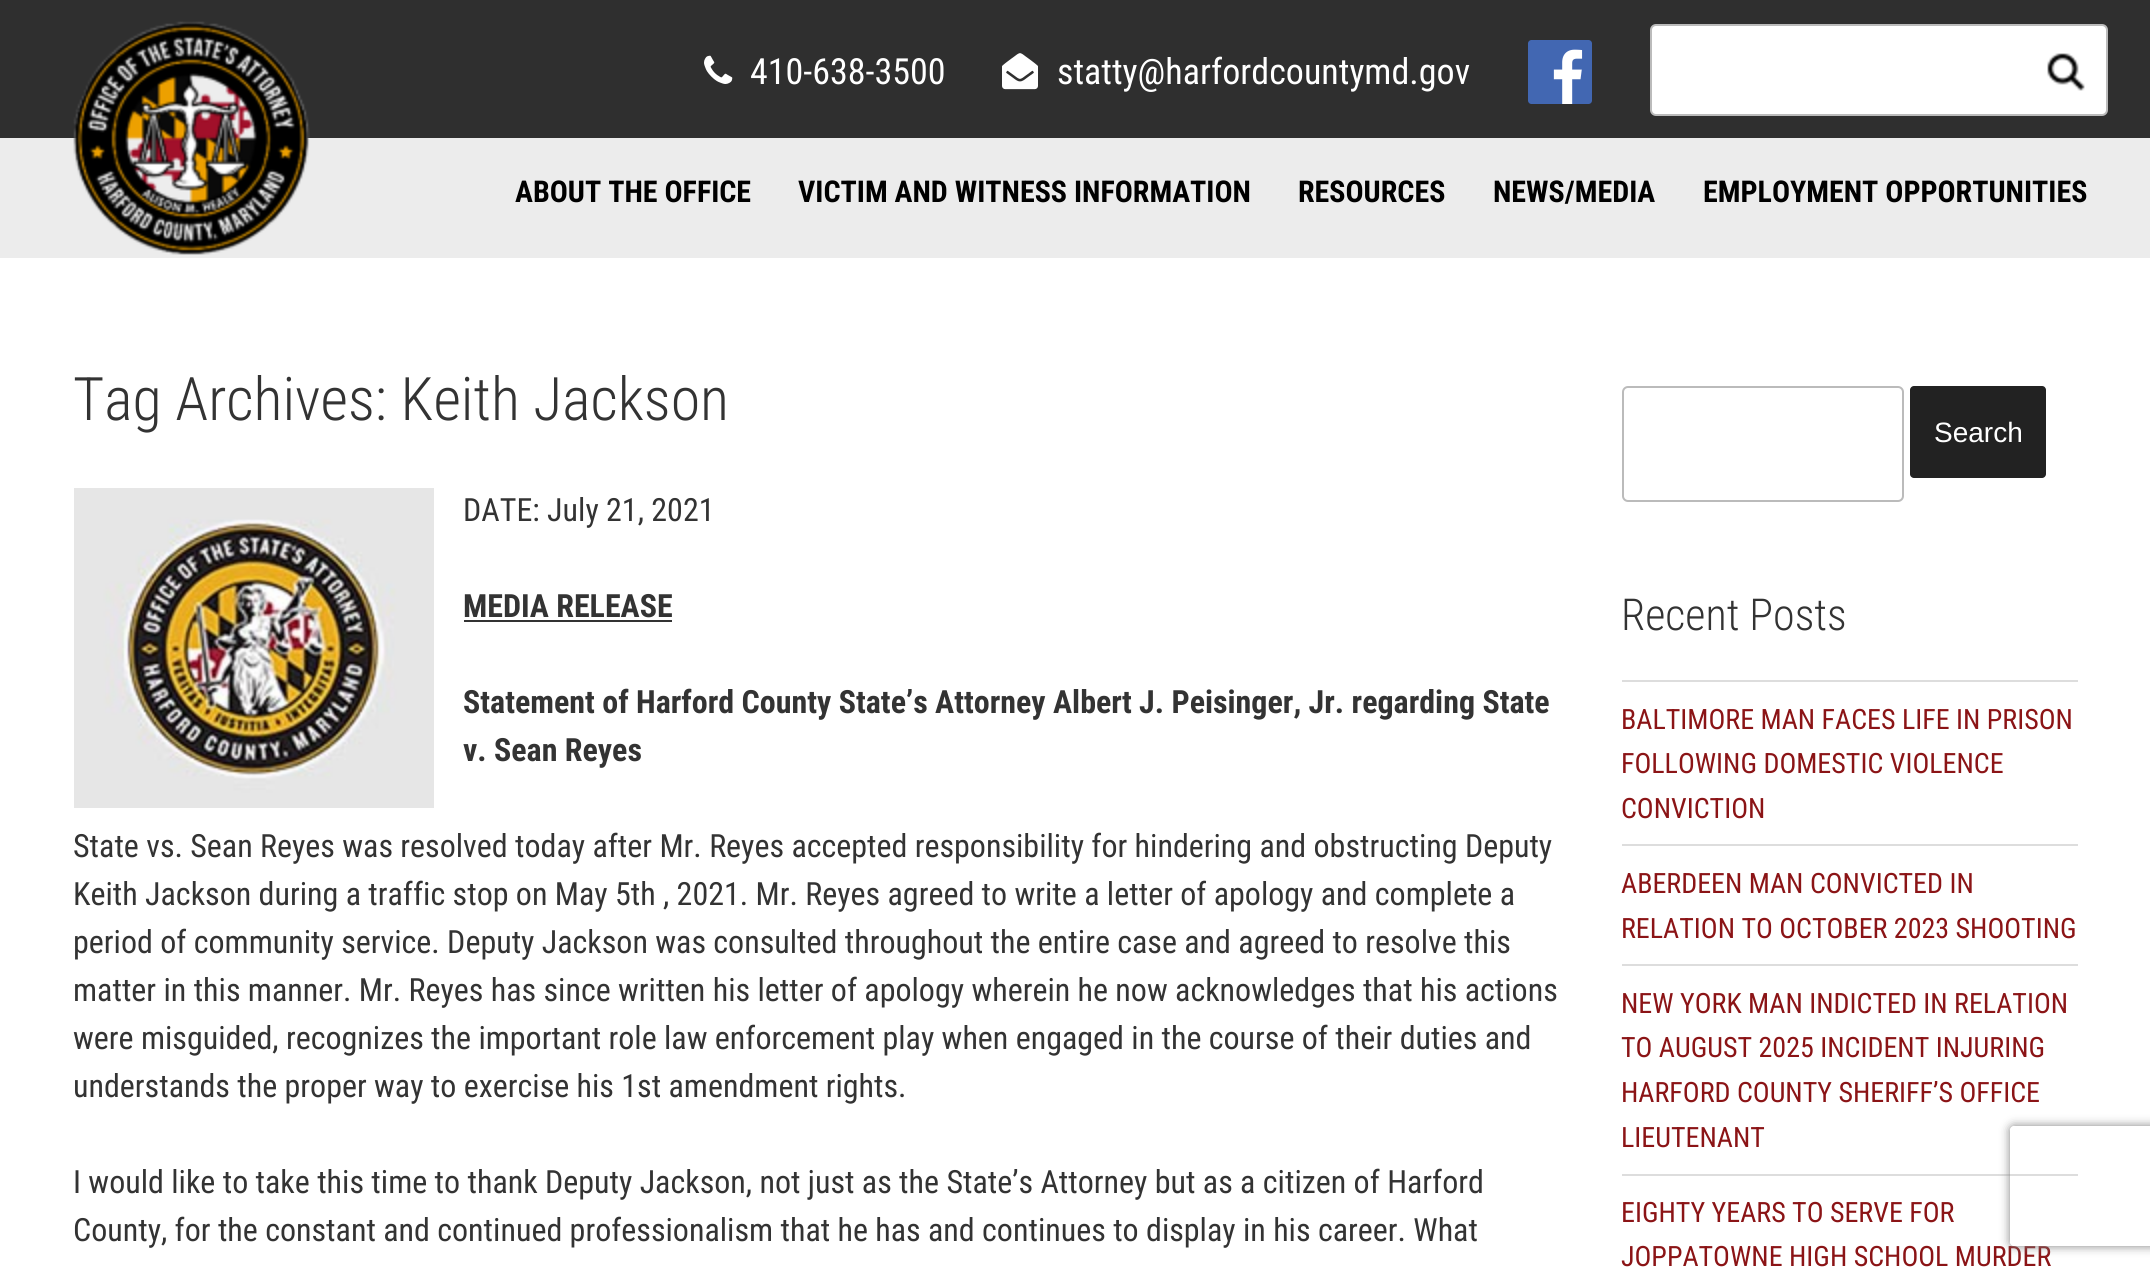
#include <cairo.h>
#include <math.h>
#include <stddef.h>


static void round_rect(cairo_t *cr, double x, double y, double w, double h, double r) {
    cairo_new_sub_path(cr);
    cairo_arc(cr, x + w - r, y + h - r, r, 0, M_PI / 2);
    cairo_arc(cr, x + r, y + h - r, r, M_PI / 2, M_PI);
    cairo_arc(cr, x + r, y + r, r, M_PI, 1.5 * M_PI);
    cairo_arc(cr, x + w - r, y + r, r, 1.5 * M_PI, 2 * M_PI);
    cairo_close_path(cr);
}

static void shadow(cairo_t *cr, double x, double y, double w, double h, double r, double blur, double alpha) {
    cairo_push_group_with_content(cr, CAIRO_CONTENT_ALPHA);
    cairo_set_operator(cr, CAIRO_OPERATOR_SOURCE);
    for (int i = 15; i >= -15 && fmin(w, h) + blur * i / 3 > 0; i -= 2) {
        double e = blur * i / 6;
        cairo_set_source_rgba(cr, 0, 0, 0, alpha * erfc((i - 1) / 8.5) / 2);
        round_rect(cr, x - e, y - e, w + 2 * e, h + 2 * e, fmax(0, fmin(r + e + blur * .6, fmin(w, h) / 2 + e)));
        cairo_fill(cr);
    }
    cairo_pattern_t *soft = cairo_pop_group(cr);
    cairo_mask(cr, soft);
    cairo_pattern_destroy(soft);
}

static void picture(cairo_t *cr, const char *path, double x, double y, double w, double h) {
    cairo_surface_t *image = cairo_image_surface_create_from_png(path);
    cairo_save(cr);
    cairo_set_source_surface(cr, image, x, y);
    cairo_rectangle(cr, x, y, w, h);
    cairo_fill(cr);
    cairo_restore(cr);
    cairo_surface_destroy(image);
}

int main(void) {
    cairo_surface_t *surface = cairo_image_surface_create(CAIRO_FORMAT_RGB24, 2150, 1274);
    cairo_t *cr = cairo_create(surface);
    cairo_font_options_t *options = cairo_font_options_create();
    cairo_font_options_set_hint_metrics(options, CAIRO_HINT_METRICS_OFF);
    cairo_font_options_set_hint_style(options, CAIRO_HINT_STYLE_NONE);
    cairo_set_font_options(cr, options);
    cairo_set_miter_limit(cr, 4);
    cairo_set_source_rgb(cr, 1, 1, 1);
    cairo_paint(cr);
    cairo_set_source_rgb(cr, 0.184, 0.184, 0.184);
    cairo_rectangle(cr, 0, 0, 2150, 138);
    cairo_fill(cr);
    cairo_set_source_rgb(cr, 0.922, 0.922, 0.922);
    cairo_rectangle(cr, 0, 138, 2150, 120);
    cairo_fill(cr);
    picture(cr, "img1.png", 73, 21, 237, 234);
    picture(cr, "img2.png", 704, 55, 29, 29);
    cairo_select_font_face(cr, "Roboto Condensed", CAIRO_FONT_SLANT_NORMAL, CAIRO_FONT_WEIGHT_NORMAL);
    cairo_set_font_size(cr, 36);
    cairo_set_source_rgb(cr, 1, 1, 1);
    cairo_move_to(cr, 750, 84);
    cairo_show_text(cr, "410-638-3500");
    picture(cr, "img3.png", 1002, 53, 36, 37);
    cairo_move_to(cr, 1057, 84);
    cairo_show_text(cr, "statty@harfordcountymd.gov");
    picture(cr, "img4.png", 1528, 40, 64, 64);
    round_rect(cr, 1651, 25, 456, 90, 5);
    cairo_fill_preserve(cr);
    cairo_set_source_rgb(cr, 0.733, 0.733, 0.733);
    cairo_stroke(cr);
    picture(cr, "img5.png", 2047, 53, 38, 38);
    cairo_select_font_face(cr, "Roboto Condensed", CAIRO_FONT_SLANT_NORMAL, CAIRO_FONT_WEIGHT_BOLD);
    cairo_set_font_size(cr, 30);
    cairo_set_source_rgb(cr, 0, 0, 0);
    cairo_move_to(cr, 515, 202);
    cairo_show_text(cr, "ABOUT THE OFFICE");
    cairo_move_to(cr, 798, 202);
    cairo_show_text(cr, "VICTIM AND WITNESS INFORMATION");
    cairo_move_to(cr, 1298, 202);
    cairo_show_text(cr, "RESOURCES");
    cairo_move_to(cr, 1493, 202);
    cairo_show_text(cr, "NEWS/MEDIA");
    cairo_move_to(cr, 1703, 202);
    cairo_show_text(cr, "EMPLOYMENT OPPORTUNITIES");
    cairo_select_font_face(cr, "Roboto Condensed Light", CAIRO_FONT_SLANT_NORMAL, CAIRO_FONT_WEIGHT_NORMAL);
    cairo_set_font_size(cr, 60);
    cairo_set_source_rgb(cr, 0.2, 0.2, 0.2);
    cairo_move_to(cr, 73, 420);
    cairo_show_text(cr, "Tag Archives: Keith Jackson");
    picture(cr, "img6.png", 74, 488, 360, 320);
    cairo_select_font_face(cr, "Roboto Condensed", CAIRO_FONT_SLANT_NORMAL, CAIRO_FONT_WEIGHT_NORMAL);
    cairo_set_font_size(cr, 32);
    cairo_move_to(cr, 463, 521);
    cairo_show_text(cr, "DATE: July 21, 2021");
    cairo_select_font_face(cr, "Roboto Condensed", CAIRO_FONT_SLANT_NORMAL, CAIRO_FONT_WEIGHT_BOLD);
    cairo_move_to(cr, 463, 617);
    cairo_show_text(cr, "MEDIA RELEASE");
    cairo_rectangle(cr, 464, 620, 208, 2);
    cairo_fill(cr);
    cairo_move_to(cr, 463, 713);
    cairo_show_text(cr, "Statement of Harford County State’s Attorney Albert J. Peisinger, Jr. regarding State");
    cairo_move_to(cr, 463, 761);
    cairo_show_text(cr, "v. Sean Reyes");
    cairo_select_font_face(cr, "Roboto Condensed", CAIRO_FONT_SLANT_NORMAL, CAIRO_FONT_WEIGHT_NORMAL);
    cairo_move_to(cr, 73, 857);
    cairo_show_text(cr, "State vs. Sean Reyes was resolved today after Mr. Reyes accepted responsibility for hindering and obstructing Deputy");
    cairo_move_to(cr, 73, 905);
    cairo_show_text(cr, "Keith Jackson during a traffic stop on May 5th , 2021. Mr. Reyes agreed to write a letter of apology and complete a");
    cairo_move_to(cr, 73, 953);
    cairo_show_text(cr, "period of community service. Deputy Jackson was consulted throughout the entire case and agreed to resolve this");
    cairo_move_to(cr, 73, 1001);
    cairo_show_text(cr, "matter in this manner. Mr. Reyes has since written his letter of apology wherein he now acknowledges that his actions");
    cairo_move_to(cr, 73, 1049);
    cairo_show_text(cr, "were misguided, recognizes the important role law enforcement play when engaged in the course of their duties and");
    cairo_move_to(cr, 73, 1097);
    cairo_show_text(cr, "understands the proper way to exercise his 1st amendment rights.");
    cairo_move_to(cr, 73, 1193);
    cairo_show_text(cr, "I would like to take this time to thank Deputy Jackson, not just as the State’s Attorney but as a citizen of Harford");
    cairo_move_to(cr, 73, 1241);
    cairo_show_text(cr, "County, for the constant and continued professionalism that he has and continues to display in his career. What");
    round_rect(cr, 1623, 387, 280, 114, 5);
    cairo_set_source_rgb(cr, 0.733, 0.733, 0.733);
    cairo_stroke(cr);
    cairo_set_source_rgb(cr, 0.133, 0.133, 0.133);
    round_rect(cr, 1910, 386, 136, 92, 4);
    cairo_fill(cr);
    cairo_select_font_face(cr, "Liberation Sans", CAIRO_FONT_SLANT_NORMAL, CAIRO_FONT_WEIGHT_NORMAL);
    cairo_set_font_size(cr, 28);
    cairo_set_source_rgb(cr, 1, 1, 1);
    cairo_move_to(cr, 1934, 442);
    cairo_show_text(cr, "Search");
    cairo_select_font_face(cr, "Roboto Condensed Light", CAIRO_FONT_SLANT_NORMAL, CAIRO_FONT_WEIGHT_NORMAL);
    cairo_set_font_size(cr, 44);
    cairo_set_source_rgb(cr, 0.2, 0.2, 0.2);
    cairo_move_to(cr, 1621, 630);
    cairo_show_text(cr, "Recent Posts");
    cairo_set_source_rgb(cr, 0.867, 0.867, 0.867);
    cairo_rectangle(cr, 1622, 680, 456, 2);
    cairo_fill(cr);
    cairo_rectangle(cr, 1622, 844, 456, 2);
    cairo_fill(cr);
    cairo_select_font_face(cr, "Roboto Condensed", CAIRO_FONT_SLANT_NORMAL, CAIRO_FONT_WEIGHT_NORMAL);
    cairo_set_font_size(cr, 28);
    cairo_set_source_rgb(cr, 0.545, 0.082, 0.086);
    cairo_move_to(cr, 1621, 729);
    cairo_show_text(cr, "BALTIMORE MAN FACES LIFE IN PRISON");
    cairo_move_to(cr, 1621, 773);
    cairo_show_text(cr, "FOLLOWING DOMESTIC VIOLENCE");
    cairo_move_to(cr, 1621, 818);
    cairo_show_text(cr, "CONVICTION");
    cairo_set_source_rgb(cr, 0.867, 0.867, 0.867);
    cairo_rectangle(cr, 1622, 964, 456, 2);
    cairo_fill(cr);
    cairo_set_source_rgb(cr, 0.545, 0.082, 0.086);
    cairo_move_to(cr, 1621, 893);
    cairo_show_text(cr, "ABERDEEN MAN CONVICTED IN");
    cairo_move_to(cr, 1621, 938);
    cairo_show_text(cr, "RELATION TO OCTOBER 2023 SHOOTING");
    cairo_set_source_rgb(cr, 0.867, 0.867, 0.867);
    cairo_rectangle(cr, 1622, 1174, 456, 2);
    cairo_fill(cr);
    cairo_set_source_rgb(cr, 0.545, 0.082, 0.086);
    cairo_move_to(cr, 1621, 1013);
    cairo_show_text(cr, "NEW YORK MAN INDICTED IN RELATION");
    cairo_move_to(cr, 1621, 1057);
    cairo_show_text(cr, "TO AUGUST 2025 INCIDENT INJURING");
    cairo_move_to(cr, 1621, 1102);
    cairo_show_text(cr, "HARFORD COUNTY SHERIFF’S OFFICE");
    cairo_move_to(cr, 1621, 1147);
    cairo_show_text(cr, "LIEUTENANT");
    cairo_move_to(cr, 1621, 1222);
    cairo_show_text(cr, "EIGHTY YEARS TO SERVE FOR");
    cairo_move_to(cr, 1621, 1266);
    cairo_show_text(cr, "JOPPATOWNE HIGH SCHOOL MURDER");
    cairo_save(cr);
    cairo_set_fill_rule(cr, CAIRO_FILL_RULE_EVEN_ODD);
    cairo_new_path(cr);
    cairo_move_to(cr, 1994, 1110);
    cairo_line_to(cr, 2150, 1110);
    cairo_line_to(cr, 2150, 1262);
    cairo_line_to(cr, 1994, 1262);
    cairo_close_path(cr);
    cairo_move_to(cr, 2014, 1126);
    cairo_line_to(cr, 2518, 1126);
    cairo_curve_to(cr, 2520, 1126, 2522, 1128, 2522, 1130);
    cairo_line_to(cr, 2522, 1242);
    cairo_curve_to(cr, 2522, 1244, 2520, 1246, 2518, 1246);
    cairo_line_to(cr, 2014, 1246);
    cairo_curve_to(cr, 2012, 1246, 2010, 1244, 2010, 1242);
    cairo_line_to(cr, 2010, 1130);
    cairo_curve_to(cr, 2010, 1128, 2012, 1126, 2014, 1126);
    cairo_close_path(cr);
    cairo_clip(cr);
    cairo_set_source_rgb(cr, 0.502, 0.502, 0.502);
    shadow(cr, 2010, 1126, 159, 120, 4, 5, 1);
    cairo_restore(cr);
    cairo_surface_write_to_png(surface, "page.png");
    cairo_font_options_destroy(options);
    cairo_destroy(cr);
    cairo_surface_destroy(surface);
    return 0;
}
